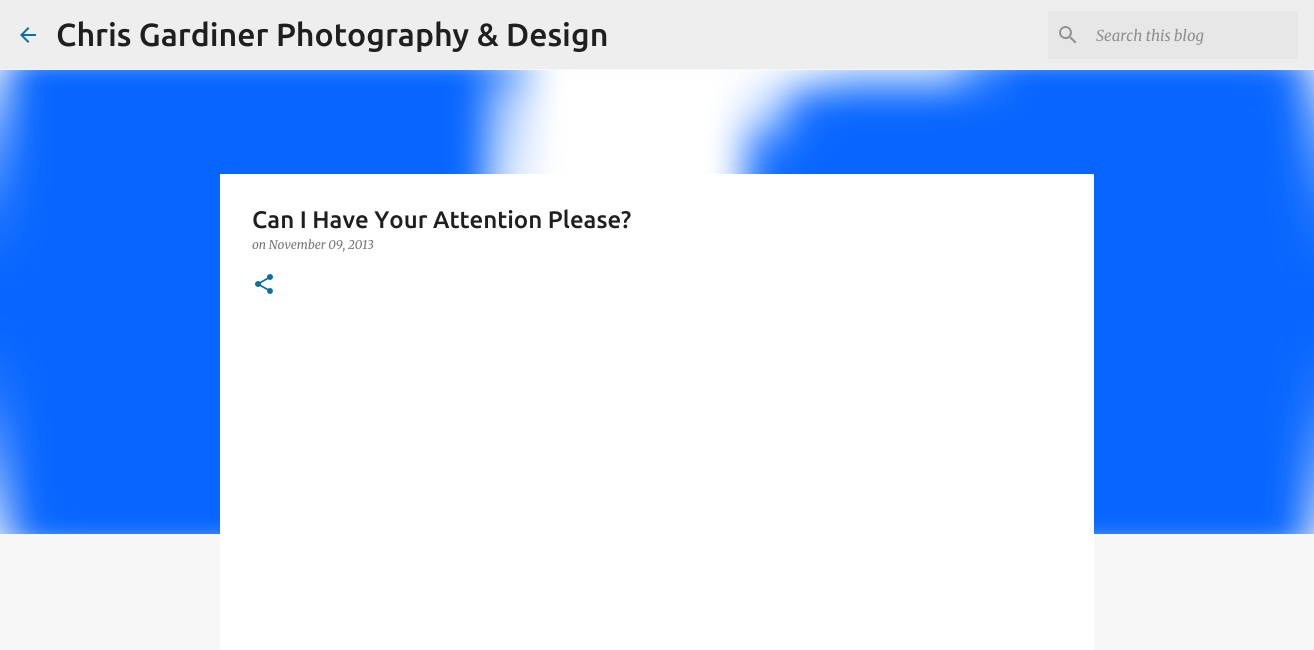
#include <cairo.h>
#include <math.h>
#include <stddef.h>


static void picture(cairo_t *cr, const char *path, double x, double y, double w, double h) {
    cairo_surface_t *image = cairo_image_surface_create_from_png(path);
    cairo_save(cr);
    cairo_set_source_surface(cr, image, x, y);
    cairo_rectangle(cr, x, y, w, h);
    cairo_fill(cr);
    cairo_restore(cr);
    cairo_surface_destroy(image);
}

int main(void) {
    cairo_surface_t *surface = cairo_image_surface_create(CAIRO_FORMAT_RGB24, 1314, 650);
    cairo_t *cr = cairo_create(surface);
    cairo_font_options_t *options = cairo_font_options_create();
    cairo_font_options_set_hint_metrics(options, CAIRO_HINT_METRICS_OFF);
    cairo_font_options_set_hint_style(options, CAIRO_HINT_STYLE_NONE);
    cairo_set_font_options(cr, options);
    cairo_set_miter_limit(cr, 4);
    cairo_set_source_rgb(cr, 0.965, 0.965, 0.965);
    cairo_paint(cr);
    cairo_set_source_rgb(cr, 0.933, 0.933, 0.933);
    cairo_rectangle(cr, 0, 0, 1314, 69);
    cairo_fill(cr);
    picture(cr, "img1.png", 20, 27, 16, 16);
    cairo_select_font_face(cr, "Ubuntu Medium", CAIRO_FONT_SLANT_NORMAL, CAIRO_FONT_WEIGHT_NORMAL);
    cairo_set_font_size(cr, 32);
    cairo_set_source_rgb(cr, 0.122, 0.122, 0.122);
    cairo_move_to(cr, 56, 46);
    cairo_show_text(cr, "Chris Gardiner Photography & Design");
    cairo_set_source_rgb(cr, 0.906, 0.906, 0.906);
    cairo_rectangle(cr, 1048, 11, 250, 48);
    cairo_fill(cr);
    picture(cr, "img2.png", 1059, 26, 18, 18);
    cairo_select_font_face(cr, "Merriweather", CAIRO_FONT_SLANT_ITALIC, CAIRO_FONT_WEIGHT_NORMAL);
    cairo_set_font_size(cr, 15);
    cairo_set_source_rgb(cr, 0.561, 0.561, 0.561);
    cairo_move_to(cr, 1096, 41);
    cairo_show_text(cr, "Search this blog");
    picture(cr, "img4.png", 0, 70, 1314, 464);
    cairo_set_source_rgb(cr, 1, 1, 1);
    cairo_rectangle(cr, 220, 174, 874, 476);
    cairo_fill(cr);
    cairo_select_font_face(cr, "Ubuntu Medium", CAIRO_FONT_SLANT_NORMAL, CAIRO_FONT_WEIGHT_NORMAL);
    cairo_set_font_size(cr, 24);
    cairo_set_source_rgb(cr, 0.122, 0.122, 0.122);
    cairo_move_to(cr, 252, 228);
    cairo_show_text(cr, "Can I Have Your Attention Please?");
    cairo_select_font_face(cr, "Merriweather", CAIRO_FONT_SLANT_ITALIC, CAIRO_FONT_WEIGHT_NORMAL);
    cairo_set_font_size(cr, 12);
    cairo_set_source_rgb(cr, 0.455, 0.455, 0.455);
    cairo_move_to(cr, 252, 249);
    cairo_show_text(cr, "on November 09, 2013");
    picture(cr, "img3.png", 255, 274, 18, 20);
    cairo_surface_write_to_png(surface, "page.png");
    cairo_font_options_destroy(options);
    cairo_destroy(cr);
    cairo_surface_destroy(surface);
    return 0;
}
